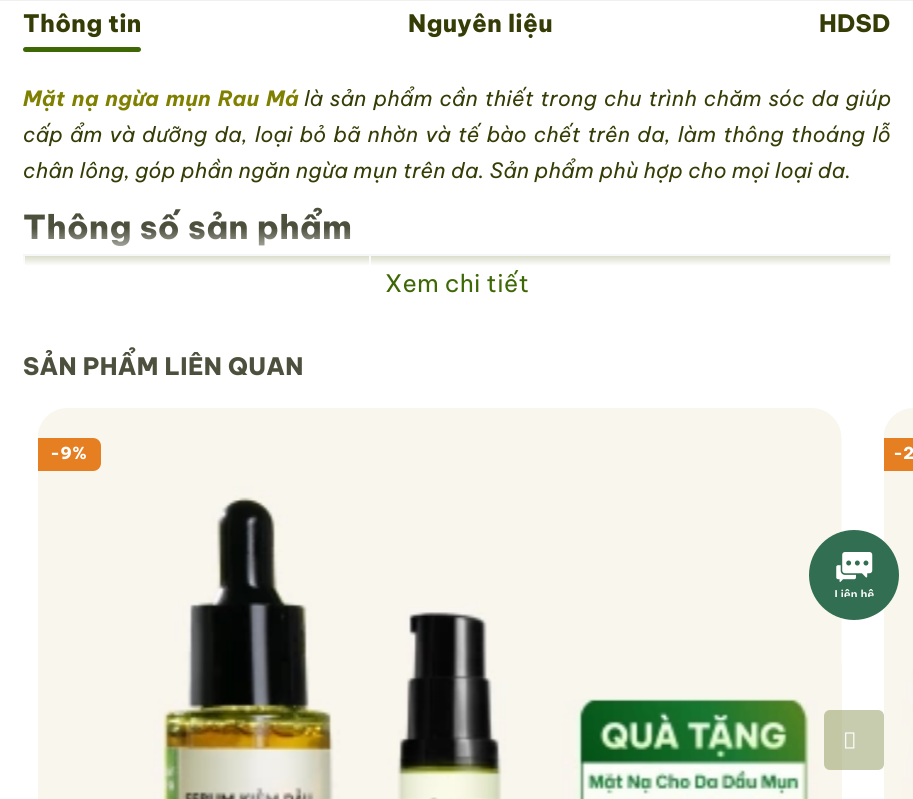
#include <cairo.h>
#include <math.h>
#include <stddef.h>


static void spaced_text(cairo_t *cr, double x, double y, const char *s, double letter, double word) {
    cairo_move_to(cr, x, y);
    while (*s) {
        char ch[5] = {0};
        int n = 0;
        do ch[n++] = *s++; while ((*s & 0xC0) == 0x80);
        cairo_show_text(cr, ch);
        cairo_rel_move_to(cr, letter + word * (*ch == ' '), 0);
    }
}

static void round_rect(cairo_t *cr, double x, double y, double w, double h, double r) {
    cairo_new_sub_path(cr);
    cairo_arc(cr, x + w - r, y + h - r, r, 0, M_PI / 2);
    cairo_arc(cr, x + r, y + h - r, r, M_PI / 2, M_PI);
    cairo_arc(cr, x + r, y + r, r, M_PI, 1.5 * M_PI);
    cairo_arc(cr, x + w - r, y + r, r, 1.5 * M_PI, 2 * M_PI);
    cairo_close_path(cr);
}

static void picture(cairo_t *cr, const char *path, double x, double y, double w, double h) {
    cairo_surface_t *image = cairo_image_surface_create_from_png(path);
    cairo_save(cr);
    cairo_set_source_surface(cr, image, x, y);
    cairo_rectangle(cr, x, y, w, h);
    cairo_fill(cr);
    cairo_restore(cr);
    cairo_surface_destroy(image);
}

int main(void) {
    cairo_surface_t *surface = cairo_image_surface_create(CAIRO_FORMAT_RGB24, 913, 799);
    cairo_t *cr = cairo_create(surface);
    cairo_font_options_t *options = cairo_font_options_create();
    cairo_font_options_set_hint_metrics(options, CAIRO_HINT_METRICS_OFF);
    cairo_font_options_set_hint_style(options, CAIRO_HINT_STYLE_NONE);
    cairo_set_font_options(cr, options);
    cairo_set_miter_limit(cr, 4);
    cairo_pattern_t *gradient;
    cairo_set_source_rgb(cr, 1, 1, 1);
    cairo_paint(cr);
    cairo_set_source_rgb(cr, 0.941, 0.941, 0.941);
    cairo_rectangle(cr, 0, 0, 913, 1);
    cairo_fill(cr);
    cairo_select_font_face(cr, "Be Vietnam Pro ExtraBold", CAIRO_FONT_SLANT_NORMAL, CAIRO_FONT_WEIGHT_NORMAL);
    cairo_set_font_size(cr, 24);
    cairo_set_source_rgb(cr, 0.212, 0.235, 0.02);
    spaced_text(cr, 23, 32, "Thông tin", 0.3, 0);
    cairo_set_source_rgb(cr, 0.243, 0.408, 0.027);
    round_rect(cr, 23, 47, 118, 5, 2.5);
    cairo_fill(cr);
    cairo_set_source_rgb(cr, 0.212, 0.235, 0.02);
    spaced_text(cr, 408, 32, "Nguyên liệu", 0.3, 0);
    spaced_text(cr, 819, 32, "HDSD", 0.3, 0);
    cairo_select_font_face(cr, "Be Vietnam Pro", CAIRO_FONT_SLANT_ITALIC, CAIRO_FONT_WEIGHT_BOLD);
    cairo_set_font_size(cr, 21);
    cairo_set_source_rgb(cr, 0.502, 0.502, 0);
    spaced_text(cr, 23, 106, "Mặt nạ ngừa mụn Rau Má", 0.3, 1.5);
    cairo_select_font_face(cr, "Be Vietnam Pro", CAIRO_FONT_SLANT_ITALIC, CAIRO_FONT_WEIGHT_NORMAL);
    cairo_set_source_rgb(cr, 0.212, 0.235, 0.02);
    spaced_text(cr, 304, 106, "là sản phẩm cần thiết trong chu trình chăm sóc da giúp", 0.3, 1.5);
    spaced_text(cr, 23, 142, "cấp ẩm và dưỡng da, loại bỏ bã nhờn và tế bào chết trên da, làm thông thoáng lỗ", 0.3, 1.8);
    spaced_text(cr, 23, 178, "chân lông, góp phần ngăn ngừa mụn trên da. Sản phẩm phù hợp cho mọi loại da.", 0.3, 0);
    cairo_select_font_face(cr, "Be Vietnam Pro ExtraBold", CAIRO_FONT_SLANT_NORMAL, CAIRO_FONT_WEIGHT_NORMAL);
    cairo_set_font_size(cr, 33);
    cairo_set_source_rgb(cr, 0.298, 0.314, 0.239);
    spaced_text(cr, 23, 239, "Thông số sản phẩm", 0.3, 0);
    cairo_set_source_rgb(cr, 0.451, 0.506, 0.212);
    cairo_rectangle(cr, 25, 256, 344, 10);
    cairo_fill(cr);
    cairo_set_source_rgb(cr, 0.871, 0.886, 0.902);
    cairo_rectangle(cr, 369, 254, 522, 2);
    cairo_fill(cr);
    cairo_rectangle(cr, 369, 254, 2, 12);
    cairo_fill(cr);
    cairo_rectangle(cr, 23, 254, 348, 2);
    cairo_fill(cr);
    cairo_rectangle(cr, 23, 254, 2, 12);
    cairo_fill(cr);
    cairo_set_source_rgb(cr, 0.451, 0.506, 0.212);
    cairo_rectangle(cr, 371, 256, 519, 10);
    cairo_fill(cr);
    cairo_set_source_rgb(cr, 0.871, 0.886, 0.902);
    cairo_rectangle(cr, 890, 254, 1, 12);
    cairo_fill(cr);
    gradient = cairo_pattern_create_linear(457, 228, 457, 266);
    cairo_pattern_add_color_stop_rgba(gradient, 0, 1, 1, 1, 0);
    cairo_pattern_add_color_stop_rgba(gradient, 1, 1, 1, 1, 1);
    cairo_set_source(cr, gradient);
    cairo_pattern_destroy(gradient);
    cairo_rectangle(cr, 23, 229, 868, 37);
    cairo_fill(cr);
    cairo_select_font_face(cr, "Be Vietnam Pro", CAIRO_FONT_SLANT_NORMAL, CAIRO_FONT_WEIGHT_NORMAL);
    cairo_set_font_size(cr, 24);
    cairo_set_source_rgb(cr, 0.243, 0.408, 0.027);
    spaced_text(cr, 385, 292, "Xem chi tiết", 0.3, 0);
    cairo_select_font_face(cr, "Be Vietnam Pro ExtraBold", CAIRO_FONT_SLANT_NORMAL, CAIRO_FONT_WEIGHT_NORMAL);
    cairo_set_source_rgb(cr, 0.298, 0.314, 0.239);
    spaced_text(cr, 23, 375, "SẢN PHẨM LIÊN QUAN", 0.3, 0);
    picture(cr, "img1.png", 38, 408, 804, 391);
    cairo_set_source_rgb(cr, 0.902, 0.494, 0.133);
    cairo_new_path(cr);
    cairo_move_to(cr, 38, 438);
    cairo_line_to(cr, 93, 438);
    cairo_curve_to(cr, 97.5, 438, 101, 441.5, 101, 446);
    cairo_line_to(cr, 101, 463);
    cairo_curve_to(cr, 101, 467.5, 97.5, 471, 93, 471);
    cairo_line_to(cr, 38, 471);
    cairo_close_path(cr);
    cairo_fill(cr);
    cairo_set_font_size(cr, 16.5);
    cairo_set_source_rgb(cr, 1, 1, 1);
    spaced_text(cr, 50, 459, "-9%", 0.3, 0);
    picture(cr, "img2.png", 884, 408, 29, 391);
    cairo_set_source_rgb(cr, 0.902, 0.494, 0.133);
    cairo_rectangle(cr, 884, 438, 29, 33);
    cairo_fill(cr);
    cairo_set_source_rgb(cr, 1, 1, 1);
    spaced_text(cr, 893, 459, "-2", 0.3, 0);
    cairo_set_source_rgb(cr, 0.196, 0.431, 0.318);
    cairo_new_path(cr);
    cairo_arc(cr, 854, 575, 45, 0, 2 * M_PI);
    cairo_fill(cr);
    picture(cr, "img3.png", 835, 552, 39, 45);
    cairo_set_source_rgba(cr, 0.451, 0.506, 0.212, 0.4);
    round_rect(cr, 824, 710, 60, 60, 6);
    cairo_fill(cr);
    picture(cr, "img4.png", 845, 732, 10, 17);
    cairo_surface_write_to_png(surface, "page.png");
    cairo_font_options_destroy(options);
    cairo_destroy(cr);
    cairo_surface_destroy(surface);
    return 0;
}
